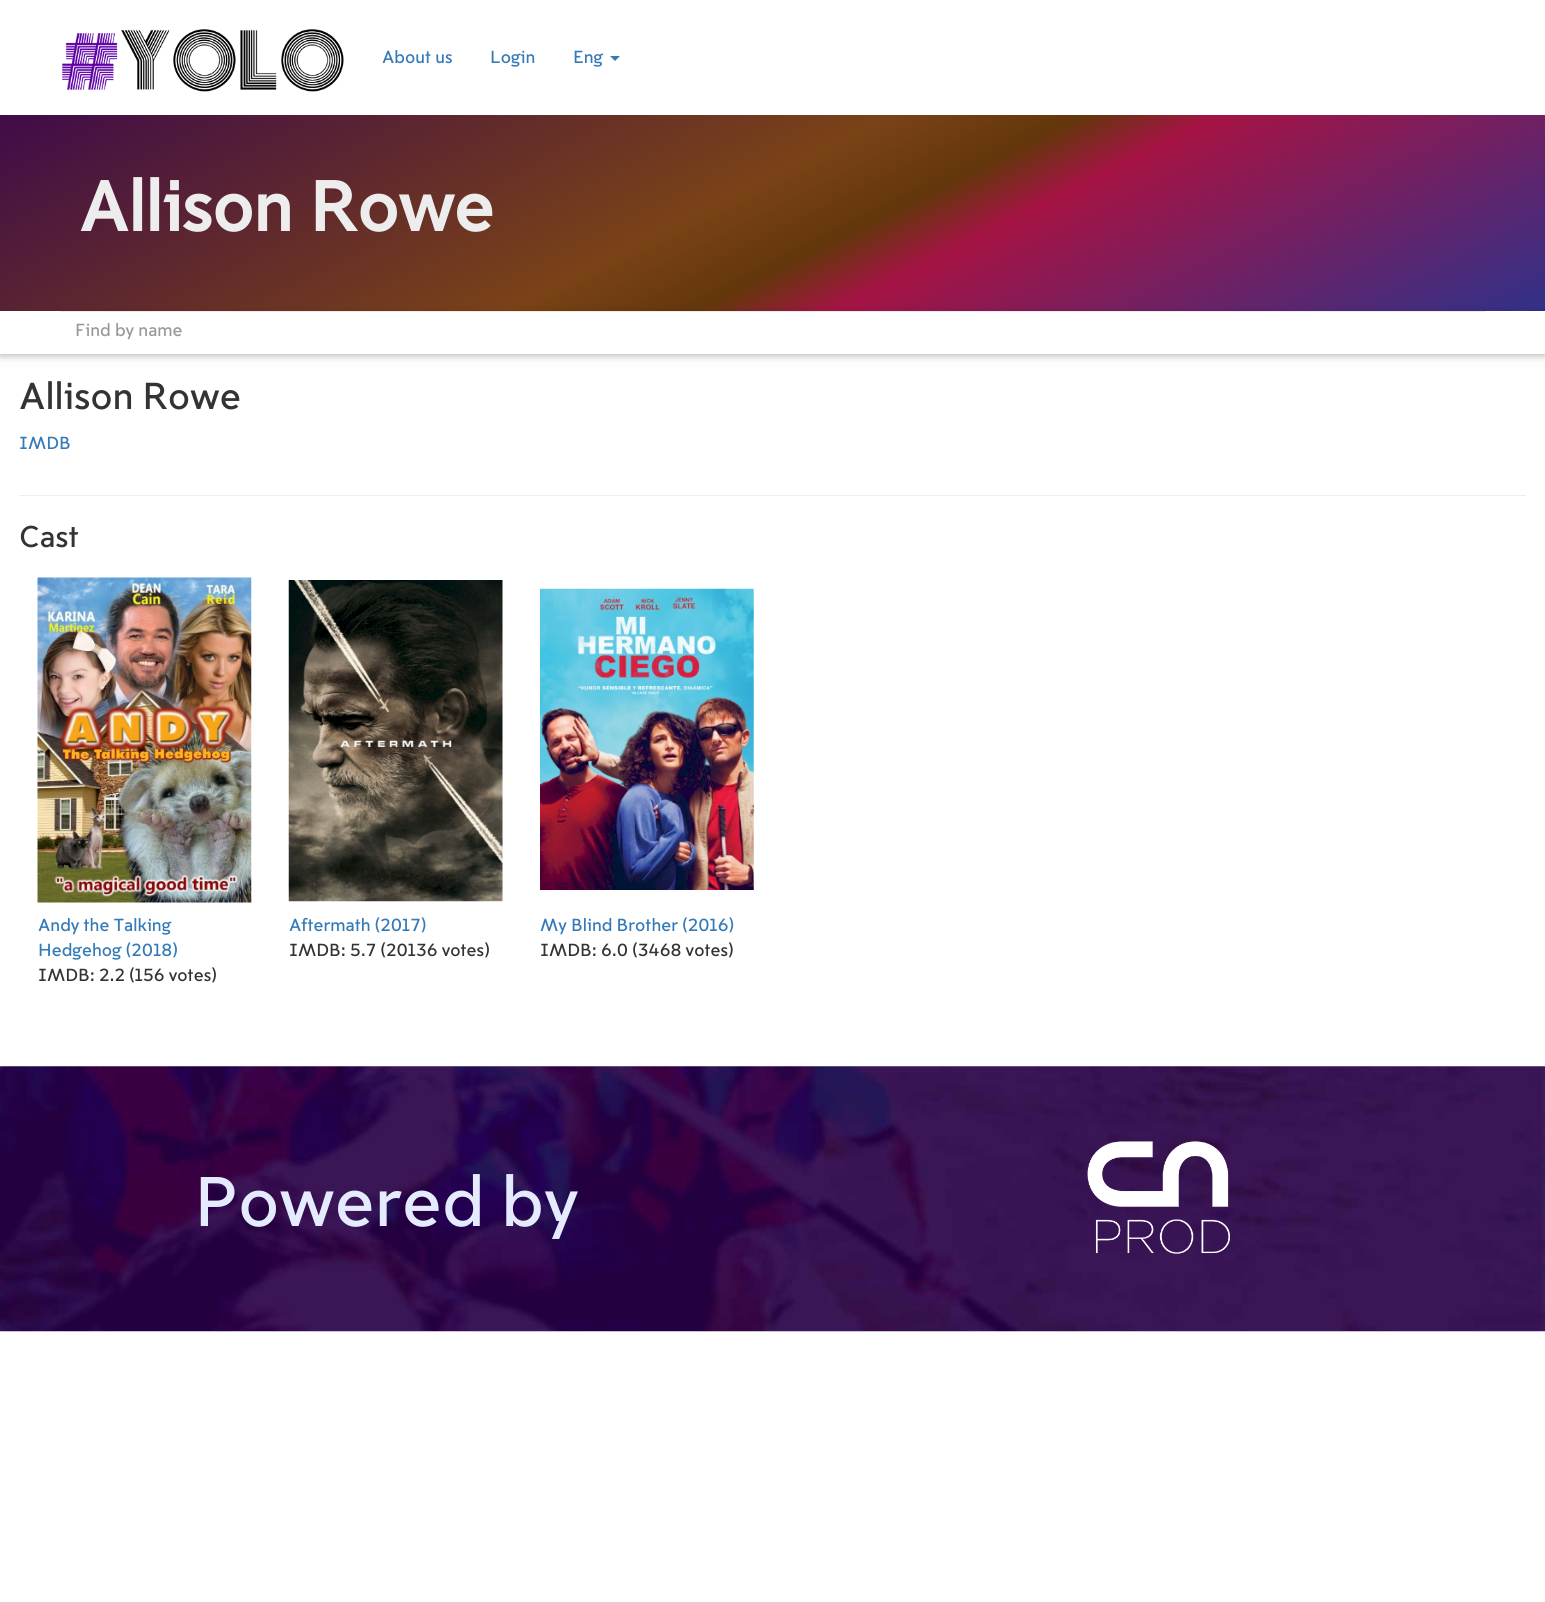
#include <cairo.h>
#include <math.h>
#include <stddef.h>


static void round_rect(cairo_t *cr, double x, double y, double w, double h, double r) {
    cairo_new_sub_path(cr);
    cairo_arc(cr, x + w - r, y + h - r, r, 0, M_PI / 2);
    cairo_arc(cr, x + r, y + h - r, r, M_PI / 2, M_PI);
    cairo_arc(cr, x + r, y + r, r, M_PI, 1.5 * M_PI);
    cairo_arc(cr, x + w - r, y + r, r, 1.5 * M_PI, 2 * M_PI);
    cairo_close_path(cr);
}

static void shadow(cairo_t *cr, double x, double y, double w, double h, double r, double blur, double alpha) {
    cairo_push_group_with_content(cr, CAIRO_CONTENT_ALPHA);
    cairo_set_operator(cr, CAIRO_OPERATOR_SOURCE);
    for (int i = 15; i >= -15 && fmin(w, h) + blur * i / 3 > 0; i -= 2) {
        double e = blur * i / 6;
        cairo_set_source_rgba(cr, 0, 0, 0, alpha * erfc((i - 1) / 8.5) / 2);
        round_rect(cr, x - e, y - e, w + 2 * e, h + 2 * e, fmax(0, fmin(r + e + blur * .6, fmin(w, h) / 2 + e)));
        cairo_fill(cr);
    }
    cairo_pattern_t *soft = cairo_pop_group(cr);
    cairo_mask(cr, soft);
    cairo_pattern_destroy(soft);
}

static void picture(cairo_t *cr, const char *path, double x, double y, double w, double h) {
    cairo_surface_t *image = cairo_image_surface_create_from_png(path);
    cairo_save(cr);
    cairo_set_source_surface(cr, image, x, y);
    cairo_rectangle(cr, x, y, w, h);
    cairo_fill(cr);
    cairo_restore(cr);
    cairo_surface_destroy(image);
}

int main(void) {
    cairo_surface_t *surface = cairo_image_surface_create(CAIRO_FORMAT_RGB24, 1545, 1602);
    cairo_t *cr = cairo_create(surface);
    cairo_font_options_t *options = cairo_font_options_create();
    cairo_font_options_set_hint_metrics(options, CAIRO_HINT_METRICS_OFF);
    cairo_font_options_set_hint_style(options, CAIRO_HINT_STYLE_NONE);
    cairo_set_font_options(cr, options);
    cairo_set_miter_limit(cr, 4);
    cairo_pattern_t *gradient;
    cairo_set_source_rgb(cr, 1, 1, 1);
    cairo_paint(cr);
    picture(cr, "img1.png", 62, 29, 282, 63);
    cairo_select_font_face(cr, "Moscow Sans", CAIRO_FONT_SLANT_NORMAL, CAIRO_FONT_WEIGHT_NORMAL);
    cairo_set_font_size(cr, 17.5);
    cairo_set_source_rgb(cr, 0.2, 0.478, 0.718);
    cairo_move_to(cr, 382, 63);
    cairo_show_text(cr, "About us");
    cairo_move_to(cr, 490, 63);
    cairo_show_text(cr, "Login");
    cairo_move_to(cr, 573, 63);
    cairo_show_text(cr, "Eng");
    cairo_new_path(cr);
    cairo_move_to(cr, 610, 56);
    cairo_line_to(cr, 620, 56);
    cairo_line_to(cr, 615, 61);
    cairo_close_path(cr);
    cairo_fill(cr);
    gradient = cairo_pattern_create_linear(574, -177, 971, 604);
    cairo_pattern_add_color_stop_rgba(gradient, 0, 0.118, 0.341, 0.6, 1);
    cairo_pattern_add_color_stop_rgba(gradient, 0, 0.251, 0.043, 0.286, 1);
    cairo_pattern_add_color_stop_rgba(gradient, 0.46, 0.478, 0.259, 0.09, 1);
    cairo_pattern_add_color_stop_rgba(gradient, 0.56, 0.388, 0.216, 0.043, 1);
    cairo_pattern_add_color_stop_rgba(gradient, 0.63, 0.647, 0.075, 0.267, 1);
    cairo_pattern_add_color_stop_rgba(gradient, 1, 0.188, 0.192, 0.537, 1);
    cairo_set_source(cr, gradient);
    cairo_pattern_destroy(gradient);
    cairo_rectangle(cr, 0, 115, 1545, 196);
    cairo_fill(cr);
    cairo_select_font_face(cr, "Moscow Sans", CAIRO_FONT_SLANT_NORMAL, CAIRO_FONT_WEIGHT_BOLD);
    cairo_set_font_size(cr, 70);
    cairo_set_source_rgb(cr, 0.929, 0.929, 0.929);
    cairo_move_to(cr, 79, 231);
    cairo_show_text(cr, "Allison Rowe");
    cairo_save(cr);
    cairo_set_fill_rule(cr, CAIRO_FILL_RULE_EVEN_ODD);
    cairo_new_path(cr);
    cairo_move_to(cr, 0, 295);
    cairo_line_to(cr, 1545, 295);
    cairo_line_to(cr, 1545, 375);
    cairo_line_to(cr, 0, 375);
    cairo_close_path(cr);
    cairo_move_to(cr, 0, 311);
    cairo_line_to(cr, 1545, 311);
    cairo_line_to(cr, 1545, 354);
    cairo_line_to(cr, 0, 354);
    cairo_close_path(cr);
    cairo_clip(cr);
    cairo_set_source_rgb(cr, 0, 0, 0);
    shadow(cr, 0, 314, 1545, 42, 0, 6, 0.12);
    cairo_restore(cr);
    cairo_save(cr);
    cairo_set_fill_rule(cr, CAIRO_FILL_RULE_EVEN_ODD);
    cairo_new_path(cr);
    cairo_move_to(cr, 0, 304);
    cairo_line_to(cr, 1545, 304);
    cairo_line_to(cr, 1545, 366);
    cairo_line_to(cr, 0, 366);
    cairo_close_path(cr);
    cairo_move_to(cr, 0, 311);
    cairo_line_to(cr, 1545, 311);
    cairo_line_to(cr, 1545, 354);
    cairo_line_to(cr, 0, 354);
    cairo_close_path(cr);
    cairo_clip(cr);
    cairo_set_source_rgb(cr, 0, 0, 0);
    shadow(cr, 0, 314, 1545, 42, 0, 3, 0.16);
    cairo_restore(cr);
    cairo_set_source_rgb(cr, 1, 1, 1);
    cairo_rectangle(cr, 60, 353, 1425, 1);
    cairo_fill(cr);
    cairo_set_source_rgb(cr, 0.925, 0.925, 0.925);
    cairo_rectangle(cr, 60, 311, 1425, 1);
    cairo_fill(cr);
    cairo_select_font_face(cr, "Moscow Sans", CAIRO_FONT_SLANT_NORMAL, CAIRO_FONT_WEIGHT_NORMAL);
    cairo_set_font_size(cr, 17.5);
    cairo_set_source_rgb(cr, 0.6, 0.6, 0.6);
    cairo_move_to(cr, 75, 336);
    cairo_show_text(cr, "Find by name");
    cairo_set_font_size(cr, 37.5);
    cairo_set_source_rgb(cr, 0.2, 0.2, 0.2);
    cairo_move_to(cr, 19, 409);
    cairo_show_text(cr, "Allison Rowe");
    cairo_set_font_size(cr, 17.5);
    cairo_set_source_rgb(cr, 0.2, 0.478, 0.718);
    cairo_move_to(cr, 19, 449);
    cairo_show_text(cr, "IMDB");
    cairo_set_source_rgb(cr, 0.933, 0.933, 0.933);
    cairo_rectangle(cr, 19, 495, 1507, 1);
    cairo_fill(cr);
    cairo_set_font_size(cr, 30);
    cairo_set_source_rgb(cr, 0.2, 0.2, 0.2);
    cairo_move_to(cr, 19, 547);
    cairo_show_text(cr, "Cast");
    picture(cr, "img2.png", 37, 577, 215, 326);
    cairo_set_font_size(cr, 17.5);
    cairo_set_source_rgb(cr, 0.2, 0.478, 0.718);
    cairo_move_to(cr, 38, 931);
    cairo_show_text(cr, "Andy the Talking");
    cairo_move_to(cr, 38, 956);
    cairo_show_text(cr, "Hedgehog (2018)");
    cairo_set_source_rgb(cr, 0.2, 0.2, 0.2);
    cairo_move_to(cr, 38, 981);
    cairo_show_text(cr, "IMDB: 2.2 (156 votes)");
    picture(cr, "img3.png", 288, 580, 215, 322);
    cairo_set_source_rgb(cr, 0.2, 0.478, 0.718);
    cairo_move_to(cr, 289, 931);
    cairo_show_text(cr, "Aftermath (2017)");
    cairo_set_source_rgb(cr, 0.2, 0.2, 0.2);
    cairo_move_to(cr, 289, 956);
    cairo_show_text(cr, "IMDB: 5.7 (20136 votes)");
    picture(cr, "img4.png", 540, 588, 214, 302);
    cairo_set_source_rgb(cr, 0.2, 0.478, 0.718);
    cairo_move_to(cr, 540, 931);
    cairo_show_text(cr, "My Blind Brother (2016)");
    cairo_set_source_rgb(cr, 0.2, 0.2, 0.2);
    cairo_move_to(cr, 540, 956);
    cairo_show_text(cr, "IMDB: 6.0 (3468 votes)");
    picture(cr, "img5.png", 0, 1066, 1545, 266);
    cairo_set_font_size(cr, 70);
    cairo_set_source_rgb(cr, 0.898, 0.918, 1);
    cairo_move_to(cr, 194, 1226);
    cairo_show_text(cr, "Powered by");
    picture(cr, "img6.png", 1087, 1141, 143, 113);
    cairo_surface_write_to_png(surface, "page.png");
    cairo_font_options_destroy(options);
    cairo_destroy(cr);
    cairo_surface_destroy(surface);
    return 0;
}
